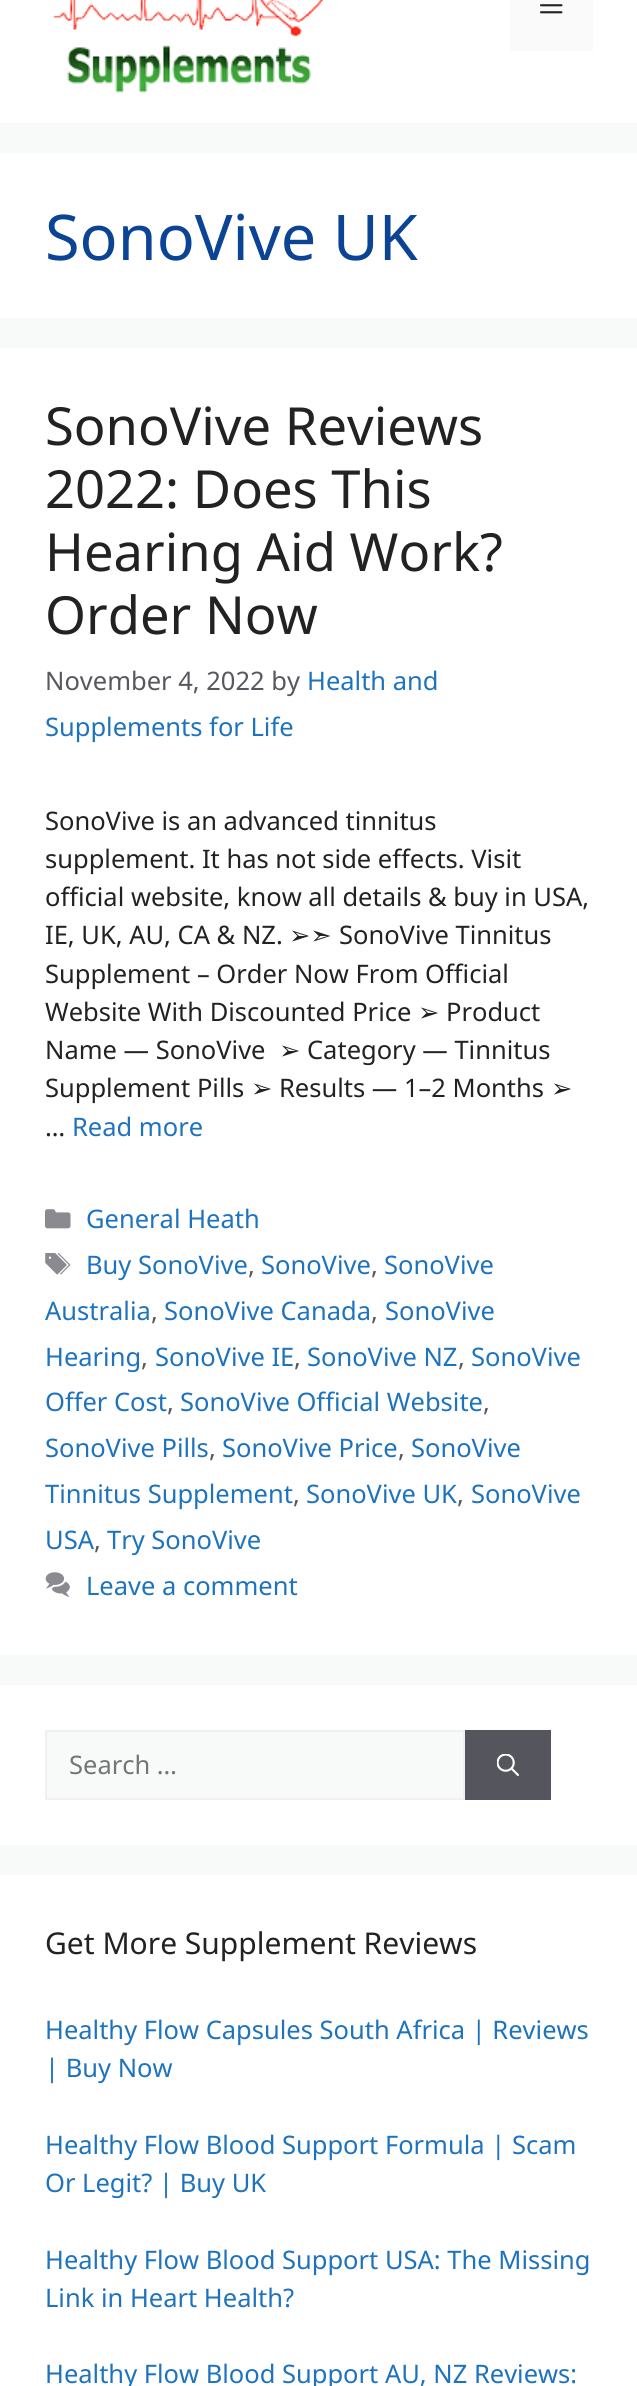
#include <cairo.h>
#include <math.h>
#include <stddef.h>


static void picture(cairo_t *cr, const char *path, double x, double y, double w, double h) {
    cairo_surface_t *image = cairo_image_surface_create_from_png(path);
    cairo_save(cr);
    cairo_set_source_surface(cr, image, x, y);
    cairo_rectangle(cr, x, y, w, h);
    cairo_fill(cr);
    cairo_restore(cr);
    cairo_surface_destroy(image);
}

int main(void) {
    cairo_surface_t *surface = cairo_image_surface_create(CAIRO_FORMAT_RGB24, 637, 2386);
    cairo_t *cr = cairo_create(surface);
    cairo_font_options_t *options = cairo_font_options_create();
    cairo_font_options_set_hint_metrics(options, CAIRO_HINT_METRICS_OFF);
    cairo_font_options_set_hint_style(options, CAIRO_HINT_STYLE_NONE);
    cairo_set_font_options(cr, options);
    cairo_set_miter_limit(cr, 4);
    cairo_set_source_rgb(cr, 0.969, 0.973, 0.976);
    cairo_paint(cr);
    cairo_set_source_rgb(cr, 1, 1, 1);
    cairo_rectangle(cr, 0, 0, 637, 123);
    cairo_fill(cr);
    picture(cr, "img1.png", 53, 0, 270, 93);
    cairo_set_source_rgb(cr, 0.98, 0.98, 0.98);
    cairo_rectangle(cr, 510, 0, 83, 51);
    cairo_fill(cr);
    picture(cr, "img2.png", 540, 4, 23, 10);
    cairo_set_source_rgb(cr, 1, 1, 1);
    cairo_rectangle(cr, 0, 153, 637, 165);
    cairo_fill(cr);
    cairo_select_font_face(cr, "Noto Sans", CAIRO_FONT_SLANT_NORMAL, CAIRO_FONT_WEIGHT_NORMAL);
    cairo_set_font_size(cr, 63);
    cairo_set_source_rgb(cr, 0.043, 0.267, 0.58);
    cairo_move_to(cr, 45, 260);
    cairo_show_text(cr, "SonoVive UK");
    cairo_set_source_rgb(cr, 1, 1, 1);
    cairo_rectangle(cr, 0, 348, 637, 1307);
    cairo_fill(cr);
    cairo_set_font_size(cr, 52.5);
    cairo_set_source_rgb(cr, 0.133, 0.133, 0.133);
    cairo_move_to(cr, 45, 445);
    cairo_show_text(cr, "SonoVive Reviews");
    cairo_move_to(cr, 45, 508);
    cairo_show_text(cr, "2022: Does This");
    cairo_move_to(cr, 45, 571);
    cairo_show_text(cr, "Hearing Aid Work?");
    cairo_move_to(cr, 45, 634);
    cairo_show_text(cr, "Order Now");
    cairo_set_font_size(cr, 25.5);
    cairo_set_source_rgb(cr, 0.341, 0.341, 0.376);
    cairo_move_to(cr, 45, 690);
    cairo_show_text(cr, "November 4, 2022 by");
    cairo_set_source_rgb(cr, 0.118, 0.451, 0.745);
    cairo_move_to(cr, 307, 690);
    cairo_show_text(cr, "Health and");
    cairo_move_to(cr, 45, 736);
    cairo_show_text(cr, "Supplements for Life");
    cairo_set_source_rgb(cr, 0.133, 0.133, 0.133);
    cairo_move_to(cr, 45, 830);
    cairo_show_text(cr, "SonoVive is an advanced tinnitus");
    cairo_move_to(cr, 45, 868);
    cairo_show_text(cr, "supplement. It has not side effects. Visit");
    cairo_move_to(cr, 45, 906);
    cairo_show_text(cr, "official website, know all details & buy in USA,");
    cairo_move_to(cr, 45, 944);
    cairo_show_text(cr, "IE, UK, AU, CA & NZ.");
    cairo_select_font_face(cr, "DejaVu Sans", CAIRO_FONT_SLANT_NORMAL, CAIRO_FONT_WEIGHT_NORMAL);
    cairo_move_to(cr, 289, 944);
    cairo_show_text(cr, "➢➣");
    cairo_select_font_face(cr, "Noto Sans", CAIRO_FONT_SLANT_NORMAL, CAIRO_FONT_WEIGHT_NORMAL);
    cairo_move_to(cr, 339, 944);
    cairo_show_text(cr, "SonoVive Tinnitus");
    cairo_move_to(cr, 45, 983);
    cairo_show_text(cr, "Supplement – Order Now From Official");
    cairo_move_to(cr, 45, 1021);
    cairo_show_text(cr, "Website With Discounted Price");
    cairo_select_font_face(cr, "DejaVu Sans", CAIRO_FONT_SLANT_NORMAL, CAIRO_FONT_WEIGHT_NORMAL);
    cairo_move_to(cr, 418, 1021);
    cairo_show_text(cr, "➢");
    cairo_select_font_face(cr, "Noto Sans", CAIRO_FONT_SLANT_NORMAL, CAIRO_FONT_WEIGHT_NORMAL);
    cairo_move_to(cr, 446, 1021);
    cairo_show_text(cr, "Product");
    cairo_move_to(cr, 45, 1059);
    cairo_show_text(cr, "Name — SonoVive");
    cairo_select_font_face(cr, "DejaVu Sans", CAIRO_FONT_SLANT_NORMAL, CAIRO_FONT_WEIGHT_NORMAL);
    cairo_move_to(cr, 279, 1059);
    cairo_show_text(cr, "➢");
    cairo_select_font_face(cr, "Noto Sans", CAIRO_FONT_SLANT_NORMAL, CAIRO_FONT_WEIGHT_NORMAL);
    cairo_move_to(cr, 307, 1059);
    cairo_show_text(cr, "Category — Tinnitus");
    cairo_move_to(cr, 45, 1097);
    cairo_show_text(cr, "Supplement Pills");
    cairo_select_font_face(cr, "DejaVu Sans", CAIRO_FONT_SLANT_NORMAL, CAIRO_FONT_WEIGHT_NORMAL);
    cairo_move_to(cr, 251, 1097);
    cairo_show_text(cr, "➢");
    cairo_select_font_face(cr, "Noto Sans", CAIRO_FONT_SLANT_NORMAL, CAIRO_FONT_WEIGHT_NORMAL);
    cairo_move_to(cr, 279, 1097);
    cairo_show_text(cr, "Results — 1–2 Months");
    cairo_select_font_face(cr, "DejaVu Sans", CAIRO_FONT_SLANT_NORMAL, CAIRO_FONT_WEIGHT_NORMAL);
    cairo_move_to(cr, 551, 1097);
    cairo_show_text(cr, "➢");
    cairo_select_font_face(cr, "Noto Sans", CAIRO_FONT_SLANT_NORMAL, CAIRO_FONT_WEIGHT_NORMAL);
    cairo_move_to(cr, 45, 1136);
    cairo_show_text(cr, "…");
    cairo_set_source_rgb(cr, 0.118, 0.451, 0.745);
    cairo_move_to(cr, 72, 1136);
    cairo_show_text(cr, "Read more");
    picture(cr, "img3.png", 45, 1209, 26, 20);
    cairo_move_to(cr, 86, 1228);
    cairo_show_text(cr, "General Heath");
    picture(cr, "img4.png", 45, 1253, 26, 22);
    cairo_move_to(cr, 86, 1274);
    cairo_show_text(cr, "Buy SonoVive");
    cairo_set_source_rgb(cr, 0.341, 0.341, 0.376);
    cairo_move_to(cr, 248, 1274);
    cairo_show_text(cr, ",");
    cairo_set_source_rgb(cr, 0.118, 0.451, 0.745);
    cairo_move_to(cr, 261, 1274);
    cairo_show_text(cr, "SonoVive");
    cairo_set_source_rgb(cr, 0.341, 0.341, 0.376);
    cairo_move_to(cr, 371, 1274);
    cairo_show_text(cr, ",");
    cairo_set_source_rgb(cr, 0.118, 0.451, 0.745);
    cairo_move_to(cr, 384, 1274);
    cairo_show_text(cr, "SonoVive");
    cairo_move_to(cr, 45, 1320);
    cairo_show_text(cr, "Australia");
    cairo_set_source_rgb(cr, 0.341, 0.341, 0.376);
    cairo_move_to(cr, 151, 1320);
    cairo_show_text(cr, ",");
    cairo_set_source_rgb(cr, 0.118, 0.451, 0.745);
    cairo_move_to(cr, 164, 1320);
    cairo_show_text(cr, "SonoVive Canada");
    cairo_set_source_rgb(cr, 0.341, 0.341, 0.376);
    cairo_move_to(cr, 371, 1320);
    cairo_show_text(cr, ",");
    cairo_set_source_rgb(cr, 0.118, 0.451, 0.745);
    cairo_move_to(cr, 385, 1320);
    cairo_show_text(cr, "SonoVive");
    cairo_move_to(cr, 45, 1366);
    cairo_show_text(cr, "Hearing");
    cairo_set_source_rgb(cr, 0.341, 0.341, 0.376);
    cairo_move_to(cr, 141, 1366);
    cairo_show_text(cr, ",");
    cairo_set_source_rgb(cr, 0.118, 0.451, 0.745);
    cairo_move_to(cr, 155, 1366);
    cairo_show_text(cr, "SonoVive IE");
    cairo_set_source_rgb(cr, 0.341, 0.341, 0.376);
    cairo_move_to(cr, 294, 1366);
    cairo_show_text(cr, ",");
    cairo_set_source_rgb(cr, 0.118, 0.451, 0.745);
    cairo_move_to(cr, 307, 1366);
    cairo_show_text(cr, "SonoVive NZ");
    cairo_set_source_rgb(cr, 0.341, 0.341, 0.376);
    cairo_move_to(cr, 458, 1366);
    cairo_show_text(cr, ",");
    cairo_set_source_rgb(cr, 0.118, 0.451, 0.745);
    cairo_move_to(cr, 471, 1366);
    cairo_show_text(cr, "SonoVive");
    cairo_move_to(cr, 45, 1411);
    cairo_show_text(cr, "Offer Cost");
    cairo_set_source_rgb(cr, 0.341, 0.341, 0.376);
    cairo_move_to(cr, 167, 1411);
    cairo_show_text(cr, ",");
    cairo_set_source_rgb(cr, 0.118, 0.451, 0.745);
    cairo_move_to(cr, 180, 1411);
    cairo_show_text(cr, "SonoVive Official Website");
    cairo_set_source_rgb(cr, 0.341, 0.341, 0.376);
    cairo_move_to(cr, 483, 1411);
    cairo_show_text(cr, ",");
    cairo_set_source_rgb(cr, 0.118, 0.451, 0.745);
    cairo_move_to(cr, 45, 1457);
    cairo_show_text(cr, "SonoVive Pills");
    cairo_set_source_rgb(cr, 0.341, 0.341, 0.376);
    cairo_move_to(cr, 209, 1457);
    cairo_show_text(cr, ",");
    cairo_set_source_rgb(cr, 0.118, 0.451, 0.745);
    cairo_move_to(cr, 222, 1457);
    cairo_show_text(cr, "SonoVive Price");
    cairo_set_source_rgb(cr, 0.341, 0.341, 0.376);
    cairo_move_to(cr, 398, 1457);
    cairo_show_text(cr, ",");
    cairo_set_source_rgb(cr, 0.118, 0.451, 0.745);
    cairo_move_to(cr, 411, 1457);
    cairo_show_text(cr, "SonoVive");
    cairo_move_to(cr, 45, 1503);
    cairo_show_text(cr, "Tinnitus Supplement");
    cairo_set_source_rgb(cr, 0.341, 0.341, 0.376);
    cairo_move_to(cr, 293, 1503);
    cairo_show_text(cr, ",");
    cairo_set_source_rgb(cr, 0.118, 0.451, 0.745);
    cairo_move_to(cr, 306, 1503);
    cairo_show_text(cr, "SonoVive UK");
    cairo_set_source_rgb(cr, 0.341, 0.341, 0.376);
    cairo_move_to(cr, 457, 1503);
    cairo_show_text(cr, ",");
    cairo_set_source_rgb(cr, 0.118, 0.451, 0.745);
    cairo_move_to(cr, 471, 1503);
    cairo_show_text(cr, "SonoVive");
    cairo_move_to(cr, 45, 1549);
    cairo_show_text(cr, "USA");
    cairo_set_source_rgb(cr, 0.341, 0.341, 0.376);
    cairo_move_to(cr, 94, 1549);
    cairo_show_text(cr, ",");
    cairo_set_source_rgb(cr, 0.118, 0.451, 0.745);
    cairo_move_to(cr, 107, 1549);
    cairo_show_text(cr, "Try SonoVive");
    picture(cr, "img5.png", 45, 1572, 25, 26);
    cairo_move_to(cr, 86, 1595);
    cairo_show_text(cr, "Leave a comment");
    cairo_set_source_rgb(cr, 1, 1, 1);
    cairo_rectangle(cr, 0, 1685, 637, 160);
    cairo_fill(cr);
    cairo_set_source_rgb(cr, 0.969, 0.973, 0.976);
    cairo_rectangle(cr, 46, 1731, 418, 68);
    cairo_fill_preserve(cr);
    cairo_set_source_rgb(cr, 0.941, 0.941, 0.941);
    cairo_stroke(cr);
    cairo_set_source_rgb(cr, 0.459, 0.459, 0.459);
    cairo_move_to(cr, 69, 1774);
    cairo_show_text(cr, "Search …");
    cairo_set_source_rgb(cr, 0.333, 0.333, 0.369);
    cairo_rectangle(cr, 465, 1730, 86, 70);
    cairo_fill(cr);
    picture(cr, "img6.png", 497, 1754, 22, 22);
    cairo_set_source_rgb(cr, 1, 1, 1);
    cairo_rectangle(cr, 0, 1875, 637, 511);
    cairo_fill(cr);
    cairo_set_font_size(cr, 30);
    cairo_set_source_rgb(cr, 0.133, 0.133, 0.133);
    cairo_move_to(cr, 45, 1954);
    cairo_show_text(cr, "Get More Supplement Reviews");
    cairo_set_font_size(cr, 25.5);
    cairo_set_source_rgb(cr, 0.118, 0.451, 0.745);
    cairo_move_to(cr, 45, 2039);
    cairo_show_text(cr, "Healthy Flow Capsules South Africa | Reviews");
    cairo_move_to(cr, 45, 2077);
    cairo_show_text(cr, "| Buy Now");
    cairo_move_to(cr, 45, 2154);
    cairo_show_text(cr, "Healthy Flow Blood Support Formula | Scam");
    cairo_move_to(cr, 45, 2192);
    cairo_show_text(cr, "Or Legit? | Buy UK");
    cairo_move_to(cr, 45, 2269);
    cairo_show_text(cr, "Healthy Flow Blood Support USA: The Missing");
    cairo_move_to(cr, 45, 2307);
    cairo_show_text(cr, "Link in Heart Health?");
    cairo_move_to(cr, 45, 2383);
    cairo_show_text(cr, "Healthy Flow Blood Support AU, NZ Reviews:");
    cairo_surface_write_to_png(surface, "page.png");
    cairo_font_options_destroy(options);
    cairo_destroy(cr);
    cairo_surface_destroy(surface);
    return 0;
}
